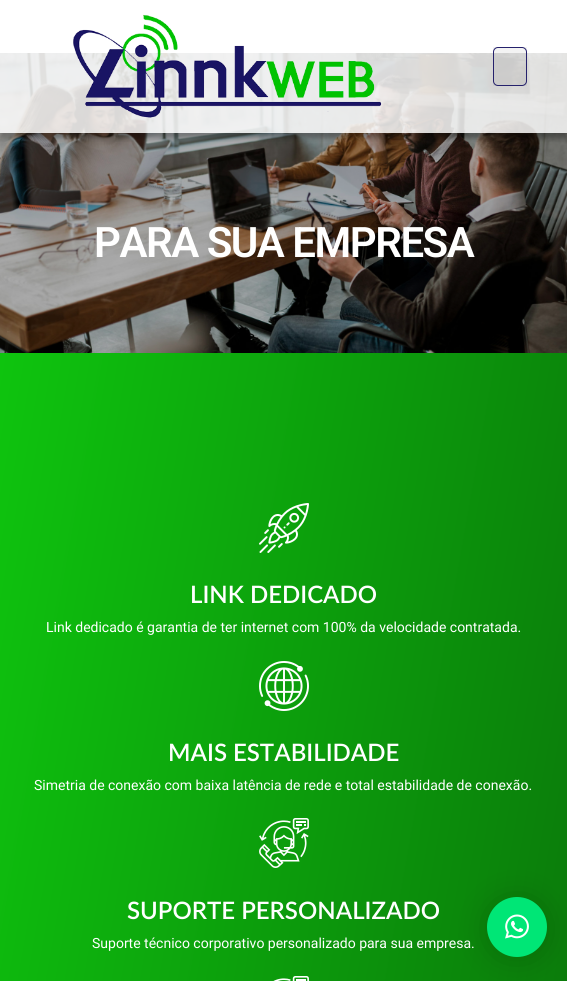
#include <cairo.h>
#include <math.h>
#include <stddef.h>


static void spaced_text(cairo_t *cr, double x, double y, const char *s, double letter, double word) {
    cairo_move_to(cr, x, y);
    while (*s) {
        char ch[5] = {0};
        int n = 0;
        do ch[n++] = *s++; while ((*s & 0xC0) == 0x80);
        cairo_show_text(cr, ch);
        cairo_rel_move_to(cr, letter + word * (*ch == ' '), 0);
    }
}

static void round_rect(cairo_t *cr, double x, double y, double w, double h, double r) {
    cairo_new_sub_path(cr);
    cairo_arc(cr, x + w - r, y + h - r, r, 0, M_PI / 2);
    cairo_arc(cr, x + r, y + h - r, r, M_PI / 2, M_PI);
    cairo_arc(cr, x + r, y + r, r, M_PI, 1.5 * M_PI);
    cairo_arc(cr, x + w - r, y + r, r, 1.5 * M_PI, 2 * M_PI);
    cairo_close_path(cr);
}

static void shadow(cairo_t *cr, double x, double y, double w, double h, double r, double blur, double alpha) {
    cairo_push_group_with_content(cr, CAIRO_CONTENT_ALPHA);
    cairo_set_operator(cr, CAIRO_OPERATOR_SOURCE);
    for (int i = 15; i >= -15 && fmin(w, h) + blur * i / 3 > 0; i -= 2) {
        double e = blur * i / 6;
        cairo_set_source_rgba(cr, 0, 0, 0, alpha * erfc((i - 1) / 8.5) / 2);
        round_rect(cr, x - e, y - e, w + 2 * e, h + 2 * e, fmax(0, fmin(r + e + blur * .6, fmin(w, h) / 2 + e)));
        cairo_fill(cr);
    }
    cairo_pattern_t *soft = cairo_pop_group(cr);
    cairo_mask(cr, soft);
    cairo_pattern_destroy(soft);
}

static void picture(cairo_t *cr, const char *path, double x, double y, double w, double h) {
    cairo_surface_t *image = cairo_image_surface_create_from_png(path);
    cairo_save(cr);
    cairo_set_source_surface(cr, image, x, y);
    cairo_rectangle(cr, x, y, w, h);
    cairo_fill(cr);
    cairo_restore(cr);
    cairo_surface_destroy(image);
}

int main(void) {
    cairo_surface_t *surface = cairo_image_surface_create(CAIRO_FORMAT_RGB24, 567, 981);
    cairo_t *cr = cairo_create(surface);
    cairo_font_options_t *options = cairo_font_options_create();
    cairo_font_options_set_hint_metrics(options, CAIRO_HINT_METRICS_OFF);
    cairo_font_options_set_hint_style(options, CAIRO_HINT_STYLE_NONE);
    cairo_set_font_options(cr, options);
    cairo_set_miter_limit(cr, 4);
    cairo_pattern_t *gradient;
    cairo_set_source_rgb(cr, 1, 1, 1);
    cairo_paint(cr);
    picture(cr, "img2.png", 0, 53, 567, 300);
    cairo_save(cr);
    cairo_rectangle(cr, 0, 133, 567, 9);
    cairo_clip(cr);
    cairo_set_source_rgb(cr, 0, 0, 0);
    shadow(cr, 0, 5, 567, 133, 0, 2.5, 0.3);
    cairo_restore(cr);
    cairo_set_source_rgba(cr, 1, 1, 1, 0.83);
    cairo_rectangle(cr, 0, 53, 567, 80);
    cairo_fill(cr);
    picture(cr, "img1.png", 73, 14, 309, 104);
    cairo_set_source_rgba(cr, 0, 0, 0, 0.05);
    cairo_rectangle(cr, 493, 47, 34, 39);
    cairo_fill(cr);
    round_rect(cr, 493.5, 47.5, 33, 38, 4.5);
    cairo_set_source_rgb(cr, 0.145, 0.129, 0.424);
    cairo_set_line_width(cr, 1);
    cairo_stroke(cr);
    cairo_select_font_face(cr, "Roboto SemiBold", CAIRO_FONT_SLANT_NORMAL, CAIRO_FONT_WEIGHT_NORMAL);
    cairo_set_font_size(cr, 42);
    cairo_set_source_rgb(cr, 1, 1, 1);
    spaced_text(cr, 94, 257, "PARA SUA EMPRESA", -1.5, 0);
    gradient = cairo_pattern_create_linear(-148, 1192, 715, 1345);
    cairo_pattern_add_color_stop_rgba(gradient, 0, 0.055, 0.769, 0.055, 1);
    cairo_pattern_add_color_stop_rgba(gradient, 0.9, 0.039, 0.435, 0.039, 1);
    cairo_set_source(cr, gradient);
    cairo_pattern_destroy(gradient);
    cairo_rectangle(cr, 0, 353, 567, 628);
    cairo_fill(cr);
    picture(cr, "img3.png", 259, 503, 50, 50);
    cairo_select_font_face(cr, "Lato SemiBold", CAIRO_FONT_SLANT_NORMAL, CAIRO_FONT_WEIGHT_NORMAL);
    cairo_set_font_size(cr, 24);
    cairo_set_source_rgb(cr, 1, 1, 1);
    cairo_move_to(cr, 190, 603);
    cairo_show_text(cr, "LINK DEDICADO");
    cairo_select_font_face(cr, "Roboto", CAIRO_FONT_SLANT_NORMAL, CAIRO_FONT_WEIGHT_NORMAL);
    cairo_set_font_size(cr, 14);
    cairo_move_to(cr, 46, 632);
    cairo_show_text(cr, "Link dedicado é garantia de ter internet com 100% da velocidade contratada.");
    picture(cr, "img4.png", 259, 661, 50, 50);
    cairo_select_font_face(cr, "Lato SemiBold", CAIRO_FONT_SLANT_NORMAL, CAIRO_FONT_WEIGHT_NORMAL);
    cairo_set_font_size(cr, 24);
    cairo_move_to(cr, 168, 761);
    cairo_show_text(cr, "MAIS ESTABILIDADE");
    cairo_select_font_face(cr, "Roboto", CAIRO_FONT_SLANT_NORMAL, CAIRO_FONT_WEIGHT_NORMAL);
    cairo_set_font_size(cr, 14);
    cairo_move_to(cr, 34, 790);
    cairo_show_text(cr, "Simetria de conexão com baixa latência de rede e total estabilidade de conexão.");
    picture(cr, "img5.png", 259, 818, 50, 50);
    cairo_select_font_face(cr, "Lato SemiBold", CAIRO_FONT_SLANT_NORMAL, CAIRO_FONT_WEIGHT_NORMAL);
    cairo_set_font_size(cr, 24);
    cairo_move_to(cr, 127, 919);
    cairo_show_text(cr, "SUPORTE PERSONALIZADO");
    cairo_select_font_face(cr, "Roboto", CAIRO_FONT_SLANT_NORMAL, CAIRO_FONT_WEIGHT_NORMAL);
    cairo_set_font_size(cr, 14);
    cairo_move_to(cr, 92, 948);
    cairo_show_text(cr, "Suporte técnico corporativo personalizado para sua empresa.");
    picture(cr, "img6.png", 273, 976, 36, 5);
    cairo_set_source_rgb(cr, 0, 0, 0);
    shadow(cr, 487, 899, 60, 60, 30, 16, 0.16);
    cairo_set_source_rgb(cr, 0, 0.902, 0.463);
    cairo_arc(cr, 517, 927, 30, 0, 2 * M_PI);
    cairo_fill(cr);
    picture(cr, "img7.png", 505, 914, 24, 25);
    cairo_surface_write_to_png(surface, "page.png");
    cairo_font_options_destroy(options);
    cairo_destroy(cr);
    cairo_surface_destroy(surface);
    return 0;
}
